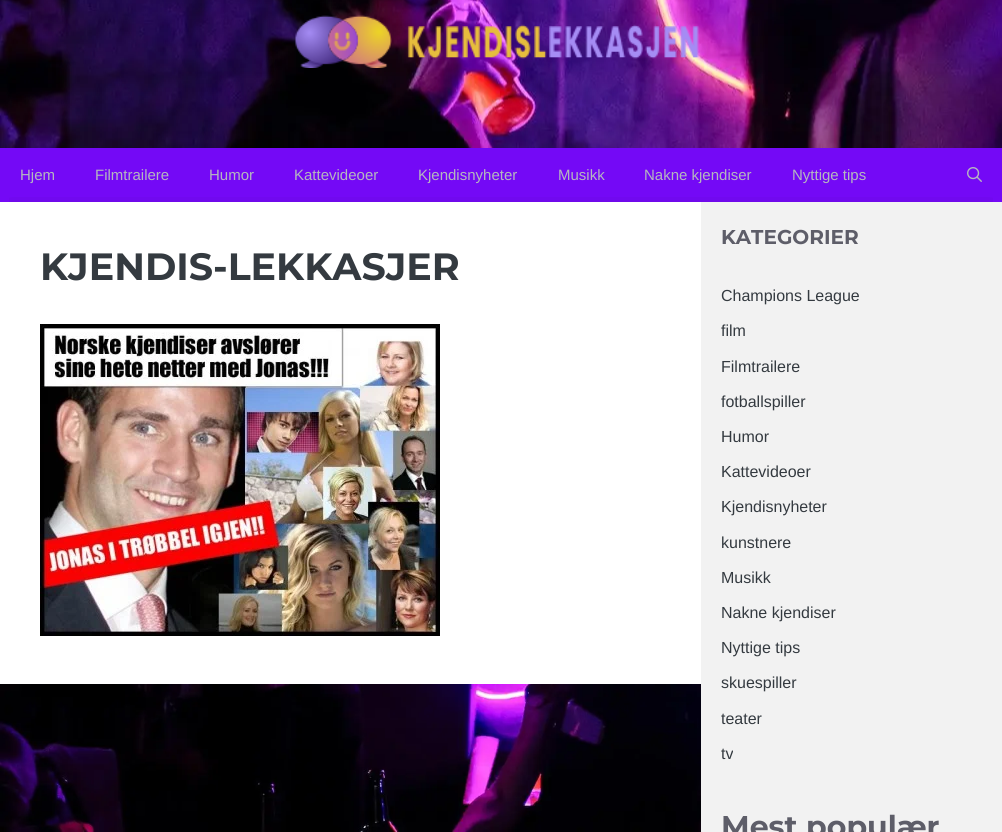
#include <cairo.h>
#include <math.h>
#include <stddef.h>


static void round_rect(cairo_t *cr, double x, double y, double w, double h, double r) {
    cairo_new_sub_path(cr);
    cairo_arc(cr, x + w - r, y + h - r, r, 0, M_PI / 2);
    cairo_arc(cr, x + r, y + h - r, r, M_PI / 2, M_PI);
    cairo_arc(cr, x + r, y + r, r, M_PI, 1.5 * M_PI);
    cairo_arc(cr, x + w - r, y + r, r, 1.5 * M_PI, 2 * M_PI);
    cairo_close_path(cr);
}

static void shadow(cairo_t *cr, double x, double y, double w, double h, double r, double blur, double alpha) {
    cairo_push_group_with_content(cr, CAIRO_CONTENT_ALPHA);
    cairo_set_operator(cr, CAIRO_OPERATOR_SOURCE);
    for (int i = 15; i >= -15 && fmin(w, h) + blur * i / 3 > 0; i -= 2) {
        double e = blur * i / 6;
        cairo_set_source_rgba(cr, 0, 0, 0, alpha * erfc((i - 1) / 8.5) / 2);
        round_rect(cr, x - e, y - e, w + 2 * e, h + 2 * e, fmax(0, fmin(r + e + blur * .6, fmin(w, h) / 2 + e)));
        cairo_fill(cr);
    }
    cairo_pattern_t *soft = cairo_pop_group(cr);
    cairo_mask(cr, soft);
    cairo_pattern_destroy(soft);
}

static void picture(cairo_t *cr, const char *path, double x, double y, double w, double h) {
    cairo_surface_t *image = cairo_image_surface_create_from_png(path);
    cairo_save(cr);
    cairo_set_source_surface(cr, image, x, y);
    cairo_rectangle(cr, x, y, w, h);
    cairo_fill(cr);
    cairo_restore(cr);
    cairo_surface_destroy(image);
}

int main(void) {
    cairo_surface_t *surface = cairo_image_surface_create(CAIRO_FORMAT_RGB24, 1002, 832);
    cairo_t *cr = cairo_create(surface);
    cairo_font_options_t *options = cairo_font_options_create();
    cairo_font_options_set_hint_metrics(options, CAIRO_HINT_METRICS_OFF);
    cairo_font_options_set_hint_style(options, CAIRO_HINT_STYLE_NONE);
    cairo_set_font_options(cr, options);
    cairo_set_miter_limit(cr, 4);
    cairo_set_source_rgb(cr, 1, 1, 1);
    cairo_paint(cr);
    picture(cr, "img1.png", 0, 684, 701, 148);
    picture(cr, "img2.png", 0, 0, 1002, 148);
    picture(cr, "img3.png", 295, 15, 404, 53);
    cairo_set_source_rgb(cr, 0.455, 0.039, 0.961);
    cairo_rectangle(cr, 0, 148, 1002, 54);
    cairo_fill(cr);
    cairo_save(cr);
    cairo_rectangle(cr, 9, 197, 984, 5);
    cairo_clip(cr);
    cairo_set_source_rgb(cr, 0, 0, 0);
    shadow(cr, 10, 212, 982, 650, 0, 10, 0.3);
    cairo_restore(cr);
    cairo_select_font_face(cr, "Liberation Sans", CAIRO_FONT_SLANT_NORMAL, CAIRO_FONT_WEIGHT_NORMAL);
    cairo_set_font_size(cr, 15);
    cairo_set_source_rgb(cr, 0.71, 0.718, 0.749);
    cairo_move_to(cr, 20, 180);
    cairo_show_text(cr, "Hjem");
    cairo_move_to(cr, 95, 180);
    cairo_show_text(cr, "Filmtrailere");
    cairo_move_to(cr, 209, 180);
    cairo_show_text(cr, "Humor");
    cairo_move_to(cr, 294, 180);
    cairo_show_text(cr, "Kattevideoer");
    cairo_move_to(cr, 418, 180);
    cairo_show_text(cr, "Kjendisnyheter");
    cairo_move_to(cr, 558, 180);
    cairo_show_text(cr, "Musikk");
    cairo_move_to(cr, 644, 180);
    cairo_show_text(cr, "Nakne kjendiser");
    cairo_move_to(cr, 792, 180);
    cairo_show_text(cr, "Nyttige tips");
    picture(cr, "img4.png", 967, 167, 15, 15);
    cairo_select_font_face(cr, "Montserrat", CAIRO_FONT_SLANT_NORMAL, CAIRO_FONT_WEIGHT_BOLD);
    cairo_set_font_size(cr, 38);
    cairo_set_source_rgb(cr, 0.204, 0.227, 0.251);
    cairo_move_to(cr, 40, 280);
    cairo_show_text(cr, "KJENDIS-LEKKASJER");
    picture(cr, "img5.png", 40, 324, 400, 312);
    cairo_set_source_rgb(cr, 0.949, 0.949, 0.949);
    cairo_rectangle(cr, 701, 202, 301, 630);
    cairo_fill(cr);
    cairo_set_font_size(cr, 20);
    cairo_set_source_rgb(cr, 0.369, 0.369, 0.412);
    cairo_move_to(cr, 721, 244);
    cairo_show_text(cr, "KATEGORIER");
    cairo_select_font_face(cr, "Liberation Sans", CAIRO_FONT_SLANT_NORMAL, CAIRO_FONT_WEIGHT_NORMAL);
    cairo_set_font_size(cr, 16);
    cairo_set_source_rgb(cr, 0.204, 0.227, 0.251);
    cairo_move_to(cr, 721, 301);
    cairo_show_text(cr, "Champions League");
    cairo_move_to(cr, 721, 336);
    cairo_show_text(cr, "film");
    cairo_move_to(cr, 721, 372);
    cairo_show_text(cr, "Filmtrailere");
    cairo_move_to(cr, 721, 407);
    cairo_show_text(cr, "fotballspiller");
    cairo_move_to(cr, 721, 442);
    cairo_show_text(cr, "Humor");
    cairo_move_to(cr, 721, 477);
    cairo_show_text(cr, "Kattevideoer");
    cairo_move_to(cr, 721, 512);
    cairo_show_text(cr, "Kjendisnyheter");
    cairo_move_to(cr, 721, 548);
    cairo_show_text(cr, "kunstnere");
    cairo_move_to(cr, 721, 583);
    cairo_show_text(cr, "Musikk");
    cairo_move_to(cr, 721, 618);
    cairo_show_text(cr, "Nakne kjendiser");
    cairo_move_to(cr, 721, 653);
    cairo_show_text(cr, "Nyttige tips");
    cairo_move_to(cr, 721, 688);
    cairo_show_text(cr, "skuespiller");
    cairo_move_to(cr, 721, 724);
    cairo_show_text(cr, "teater");
    cairo_move_to(cr, 721, 759);
    cairo_show_text(cr, "tv");
    cairo_select_font_face(cr, "Montserrat", CAIRO_FONT_SLANT_NORMAL, CAIRO_FONT_WEIGHT_BOLD);
    cairo_set_font_size(cr, 30);
    cairo_set_source_rgb(cr, 0.369, 0.369, 0.412);
    cairo_move_to(cr, 721, 837);
    cairo_show_text(cr, "Mest populær");
    cairo_surface_write_to_png(surface, "page.png");
    cairo_font_options_destroy(options);
    cairo_destroy(cr);
    cairo_surface_destroy(surface);
    return 0;
}
